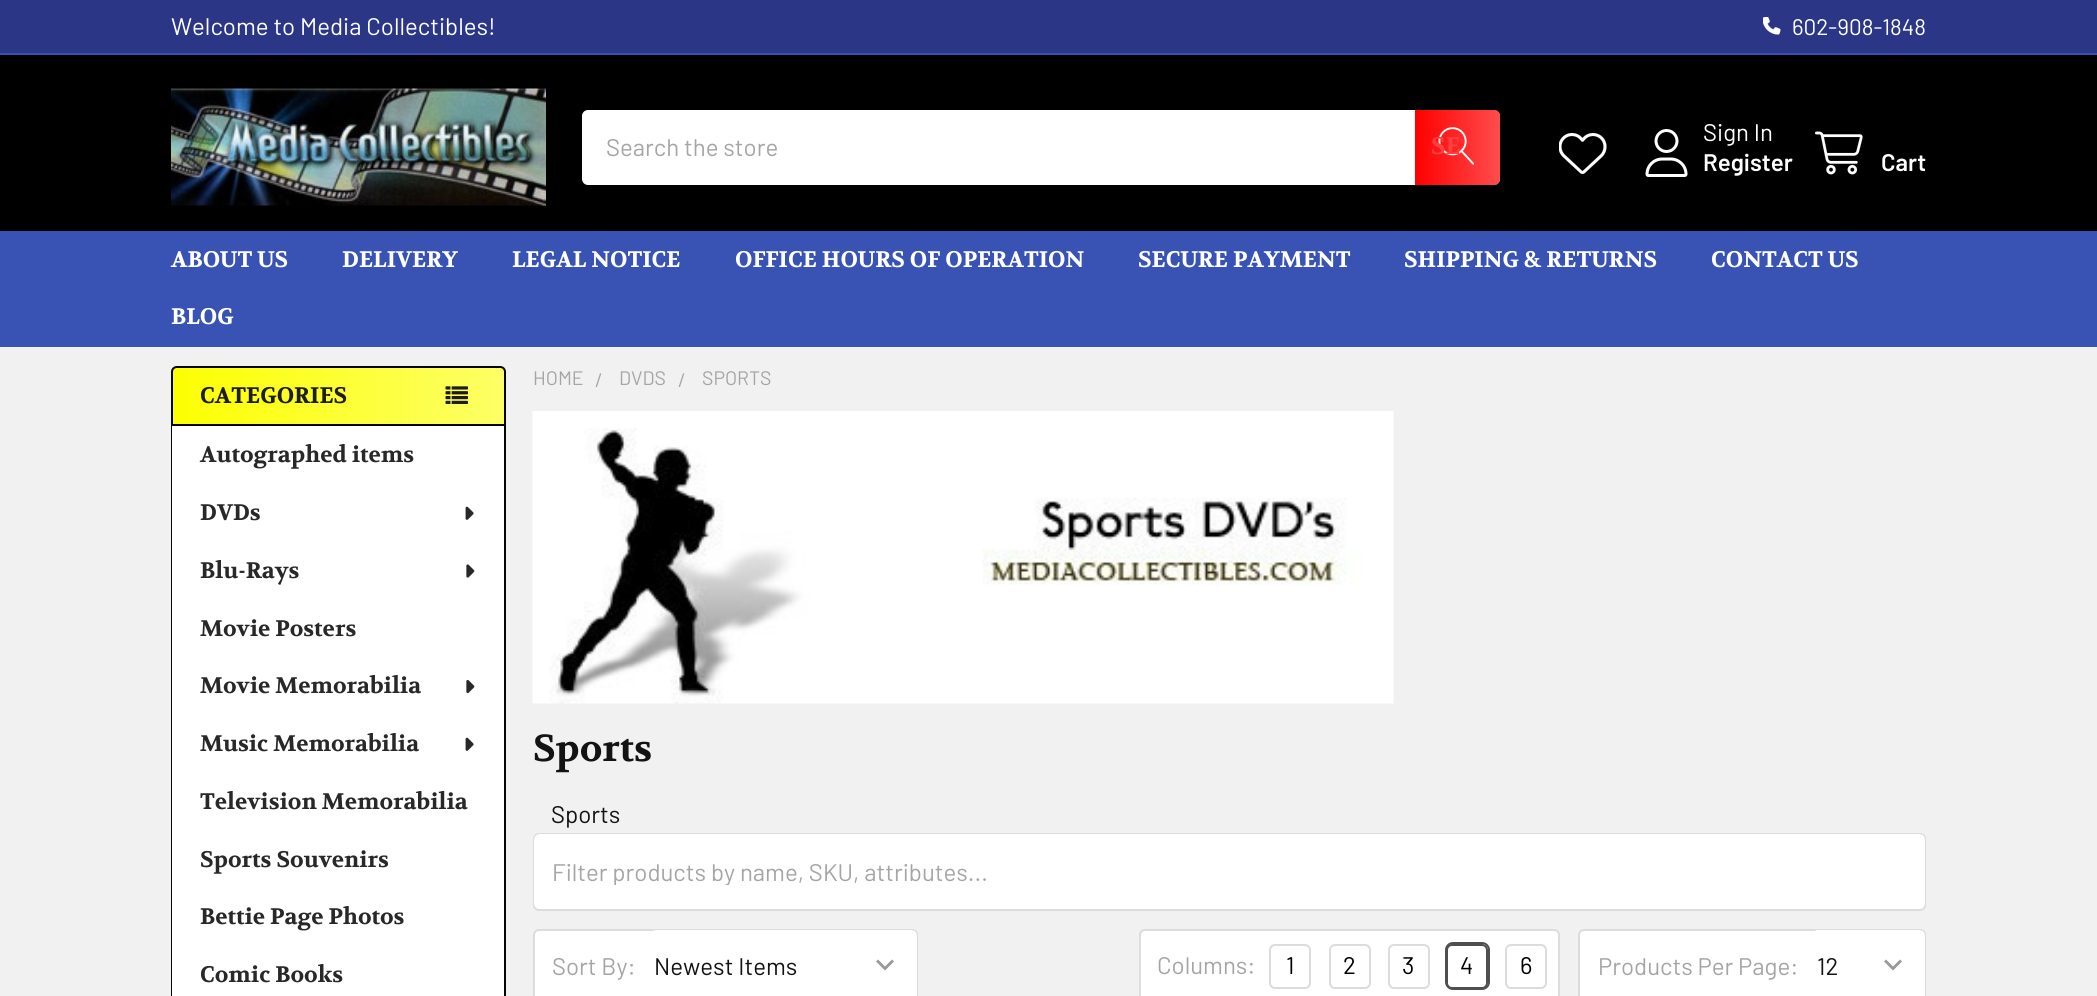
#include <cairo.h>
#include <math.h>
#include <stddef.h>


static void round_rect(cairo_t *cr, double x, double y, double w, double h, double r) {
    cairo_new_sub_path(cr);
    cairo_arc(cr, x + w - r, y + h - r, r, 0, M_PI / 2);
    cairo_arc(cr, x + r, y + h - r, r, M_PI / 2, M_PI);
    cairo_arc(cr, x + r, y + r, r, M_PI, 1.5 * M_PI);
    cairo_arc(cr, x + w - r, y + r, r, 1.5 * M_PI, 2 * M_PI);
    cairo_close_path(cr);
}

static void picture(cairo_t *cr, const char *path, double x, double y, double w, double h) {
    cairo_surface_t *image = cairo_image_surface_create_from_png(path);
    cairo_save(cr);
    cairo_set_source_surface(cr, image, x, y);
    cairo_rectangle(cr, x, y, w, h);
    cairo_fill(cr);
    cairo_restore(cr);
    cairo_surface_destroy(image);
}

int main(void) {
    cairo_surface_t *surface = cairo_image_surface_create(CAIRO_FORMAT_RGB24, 2097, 996);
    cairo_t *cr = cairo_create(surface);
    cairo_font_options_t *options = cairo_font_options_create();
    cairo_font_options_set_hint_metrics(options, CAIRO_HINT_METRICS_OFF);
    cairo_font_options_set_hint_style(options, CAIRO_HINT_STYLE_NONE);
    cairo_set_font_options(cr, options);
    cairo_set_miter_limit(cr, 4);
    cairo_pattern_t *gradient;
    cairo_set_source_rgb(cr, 0.945, 0.945, 0.949);
    cairo_paint(cr);
    cairo_set_source_rgb(cr, 0, 0, 0);
    cairo_rectangle(cr, 0, 55, 2097, 176);
    cairo_fill(cr);
    cairo_set_source_rgb(cr, 0.169, 0.212, 0.529);
    cairo_rectangle(cr, 0, 0, 2097, 53);
    cairo_fill(cr);
    cairo_set_source_rgb(cr, 0.22, 0.31, 0.698);
    cairo_rectangle(cr, 0, 53, 2097, 2);
    cairo_fill(cr);
    cairo_select_font_face(cr, "Barlow", CAIRO_FONT_SLANT_NORMAL, CAIRO_FONT_WEIGHT_NORMAL);
    cairo_set_font_size(cr, 24);
    cairo_set_source_rgb(cr, 1, 1, 1);
    cairo_move_to(cr, 171, 35);
    cairo_show_text(cr, "Welcome to Media Collectibles!");
    picture(cr, "img1.png", 1763, 17, 18, 18);
    cairo_set_font_size(cr, 22.5);
    cairo_move_to(cr, 1792, 35);
    cairo_show_text(cr, "602-908-1848");
    picture(cr, "img2.png", 171, 88, 375, 118);
    round_rect(cr, 582, 110, 918, 75, 6);
    cairo_fill(cr);
    gradient = cairo_pattern_create_linear(1415, 147, 1500, 147);
    cairo_pattern_add_color_stop_rgba(gradient, 0, 1, 0, 0, 1);
    cairo_pattern_add_color_stop_rgba(gradient, 1, 1, 0, 0, 0.7);
    cairo_set_source(cr, gradient);
    cairo_pattern_destroy(gradient);
    cairo_new_path(cr);
    cairo_move_to(cr, 1415, 110);
    cairo_line_to(cr, 1494, 110);
    cairo_curve_to(cr, 1497.5, 110, 1500, 112.5, 1500, 116);
    cairo_line_to(cr, 1500, 179);
    cairo_curve_to(cr, 1500, 182.5, 1497.5, 185, 1494, 185);
    cairo_line_to(cr, 1415, 185);
    cairo_close_path(cr);
    cairo_fill(cr);
    picture(cr, "img3.png", 1438, 127, 37, 38);
    cairo_set_font_size(cr, 24);
    cairo_set_source_rgb(cr, 0.647, 0.647, 0.647);
    cairo_move_to(cr, 606, 156);
    cairo_show_text(cr, "Search the store");
    cairo_select_font_face(cr, "Volkhov", CAIRO_FONT_SLANT_NORMAL, CAIRO_FONT_WEIGHT_BOLD);
    cairo_set_source_rgb(cr, 1, 0.251, 0.251);
    cairo_move_to(cr, 1431, 154);
    cairo_show_text(cr, "SE");
    picture(cr, "img4.png", 1559, 132, 48, 42);
    picture(cr, "img5.png", 1645, 129, 43, 48);
    cairo_select_font_face(cr, "Barlow", CAIRO_FONT_SLANT_NORMAL, CAIRO_FONT_WEIGHT_NORMAL);
    cairo_set_source_rgb(cr, 1, 1, 1);
    cairo_move_to(cr, 1703, 141);
    cairo_show_text(cr, "Sign In");
    cairo_select_font_face(cr, "Barlow SemiBold", CAIRO_FONT_SLANT_NORMAL, CAIRO_FONT_WEIGHT_NORMAL);
    cairo_move_to(cr, 1703, 171);
    cairo_show_text(cr, "Register");
    picture(cr, "img6.png", 1815, 131, 48, 44);
    cairo_move_to(cr, 1881, 171);
    cairo_show_text(cr, "Cart");
    cairo_set_source_rgb(cr, 0.22, 0.325, 0.706);
    cairo_rectangle(cr, 0, 231, 2097, 116);
    cairo_fill(cr);
    cairo_select_font_face(cr, "Volkhov", CAIRO_FONT_SLANT_NORMAL, CAIRO_FONT_WEIGHT_BOLD);
    cairo_set_font_size(cr, 22.5);
    cairo_set_source_rgb(cr, 1, 1, 1);
    cairo_move_to(cr, 171, 267);
    cairo_show_text(cr, "ABOUT US");
    cairo_move_to(cr, 342, 267);
    cairo_show_text(cr, "DELIVERY");
    cairo_move_to(cr, 512, 267);
    cairo_show_text(cr, "LEGAL NOTICE");
    cairo_move_to(cr, 735, 267);
    cairo_show_text(cr, "OFFICE HOURS OF OPERATION");
    cairo_move_to(cr, 1138, 267);
    cairo_show_text(cr, "SECURE PAYMENT");
    cairo_move_to(cr, 1404, 267);
    cairo_show_text(cr, "SHIPPING & RETURNS");
    cairo_move_to(cr, 1711, 267);
    cairo_show_text(cr, "CONTACT US");
    cairo_move_to(cr, 171, 324);
    cairo_show_text(cr, "BLOG");
    round_rect(cr, 171, 366, 335, 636, 6);
    cairo_fill(cr);
    gradient = cairo_pattern_create_linear(171, 686, 506, 686);
    cairo_pattern_add_color_stop_rgba(gradient, 0, 0.988, 1, 0, 1);
    cairo_pattern_add_color_stop_rgba(gradient, 1, 0.988, 1, 0, 0.6);
    cairo_set_source(cr, gradient);
    cairo_pattern_destroy(gradient);
    round_rect(cr, 171, 366, 335, 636, 6);
    cairo_fill(cr);
    cairo_new_path(cr);
    cairo_move_to(cr, 177, 367);
    cairo_line_to(cr, 500, 367);
    cairo_curve_to(cr, 503, 367, 505, 369, 505, 372);
    cairo_line_to(cr, 505, 425);
    cairo_line_to(cr, 172, 425);
    cairo_line_to(cr, 172, 372);
    cairo_curve_to(cr, 172, 369, 174, 367, 177, 367);
    cairo_close_path(cr);
    cairo_set_source_rgb(cr, 0.02, 0.02, 0.02);
    cairo_stroke(cr);
    cairo_set_source_rgb(cr, 0.114, 0.114, 0.114);
    cairo_move_to(cr, 200, 403);
    cairo_show_text(cr, "CATEGORIES");
    picture(cr, "img7.png", 445, 386, 23, 18);
    cairo_set_source_rgb(cr, 1, 1, 1);
    cairo_rectangle(cr, 172, 426, 332, 570);
    cairo_fill(cr);
    cairo_set_source_rgb(cr, 0.02, 0.02, 0.02);
    cairo_set_fill_rule(cr, CAIRO_FILL_RULE_EVEN_ODD);
    cairo_new_path(cr);
    cairo_move_to(cr, 171, 426);
    cairo_line_to(cr, 506, 426);
    cairo_line_to(cr, 506, 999);
    cairo_curve_to(cr, 506, 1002, 503, 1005, 500, 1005);
    cairo_line_to(cr, 177, 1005);
    cairo_curve_to(cr, 174, 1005, 171, 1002, 171, 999);
    cairo_close_path(cr);
    cairo_move_to(cr, 172, 426);
    cairo_line_to(cr, 504, 426);
    cairo_line_to(cr, 504, 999);
    cairo_curve_to(cr, 504, 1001, 502, 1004, 500, 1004);
    cairo_line_to(cr, 177, 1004);
    cairo_curve_to(cr, 175, 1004, 172, 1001, 172, 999);
    cairo_close_path(cr);
    cairo_fill(cr);
    cairo_set_source_rgb(cr, 0.157, 0.157, 0.157);
    cairo_move_to(cr, 200, 462);
    cairo_show_text(cr, "Autographed items");
    cairo_move_to(cr, 200, 520);
    cairo_show_text(cr, "DVDs");
    picture(cr, "img8.png", 465, 506, 9, 14);
    cairo_move_to(cr, 200, 578);
    cairo_show_text(cr, "Blu-Rays");
    picture(cr, "img9.png", 466, 564, 9, 14);
    cairo_move_to(cr, 200, 636);
    cairo_show_text(cr, "Movie Posters");
    cairo_move_to(cr, 200, 693);
    cairo_show_text(cr, "Movie Memorabilia");
    picture(cr, "img10.png", 466, 680, 9, 14);
    cairo_move_to(cr, 200, 751);
    cairo_show_text(cr, "Music Memorabilia");
    picture(cr, "img8.png", 465, 737, 9, 14);
    cairo_move_to(cr, 200, 809);
    cairo_show_text(cr, "Television Memorabilia");
    cairo_move_to(cr, 200, 867);
    cairo_show_text(cr, "Sports Souvenirs");
    cairo_move_to(cr, 200, 924);
    cairo_show_text(cr, "Bettie Page Photos");
    cairo_move_to(cr, 200, 982);
    cairo_show_text(cr, "Comic Books");
    cairo_select_font_face(cr, "Barlow", CAIRO_FONT_SLANT_NORMAL, CAIRO_FONT_WEIGHT_NORMAL);
    cairo_set_font_size(cr, 19.5);
    cairo_set_source_rgb(cr, 0.647, 0.647, 0.647);
    cairo_move_to(cr, 533, 385);
    cairo_show_text(cr, "HOME");
    cairo_move_to(cr, 595, 387);
    cairo_show_text(cr, "/");
    cairo_move_to(cr, 619, 385);
    cairo_show_text(cr, "DVDS");
    cairo_move_to(cr, 678, 387);
    cairo_show_text(cr, "/");
    cairo_move_to(cr, 702, 385);
    cairo_show_text(cr, "SPORTS");
    picture(cr, "img11.png", 532, 411, 862, 293);
    cairo_select_font_face(cr, "Volkhov", CAIRO_FONT_SLANT_NORMAL, CAIRO_FONT_WEIGHT_BOLD);
    cairo_set_font_size(cr, 37.5);
    cairo_set_source_rgb(cr, 0.075, 0.075, 0.075);
    cairo_move_to(cr, 533, 761);
    cairo_show_text(cr, "Sports");
    cairo_select_font_face(cr, "Barlow", CAIRO_FONT_SLANT_NORMAL, CAIRO_FONT_WEIGHT_NORMAL);
    cairo_set_font_size(cr, 24);
    cairo_move_to(cr, 551, 823);
    cairo_show_text(cr, "Sports");
    cairo_set_source_rgb(cr, 1, 1, 1);
    round_rect(cr, 534, 834, 1391, 76, 5);
    cairo_fill_preserve(cr);
    cairo_set_source_rgb(cr, 0.863, 0.863, 0.863);
    cairo_stroke(cr);
    cairo_set_source_rgb(cr, 1, 1, 1);
    round_rect(cr, 534, 834, 1391, 75, 6);
    cairo_fill(cr);
    cairo_save(cr);
    cairo_set_fill_rule(cr, CAIRO_FILL_RULE_WINDING);
    cairo_rectangle(cr, 552, 857, 1355, 28);
    cairo_clip(cr);
    cairo_set_source_rgb(cr, 0.647, 0.647, 0.647);
    cairo_move_to(cr, 552, 881);
    cairo_show_text(cr, "Filter products by name, SKU, attributes...");
    cairo_restore(cr);
    round_rect(cr, 534, 930, 383, 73, 5);
    cairo_fill_preserve(cr);
    cairo_set_source_rgb(cr, 0.863, 0.863, 0.863);
    cairo_stroke(cr);
    cairo_set_source_rgb(cr, 0.647, 0.647, 0.647);
    cairo_move_to(cr, 552, 975);
    cairo_show_text(cr, "Sort By:");
    cairo_set_source_rgb(cr, 1, 1, 1);
    round_rect(cr, 650, 930, 267, 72, 6);
    cairo_fill(cr);
    cairo_set_source_rgb(cr, 0.6, 0.6, 0.6);
    cairo_set_fill_rule(cr, CAIRO_FILL_RULE_WINDING);
    cairo_new_path(cr);
    cairo_move_to(cr, 892, 959.5);
    cairo_line_to(cr, 885, 966.5);
    cairo_line_to(cr, 878, 959.5);
    cairo_line_to(cr, 876, 961.5);
    cairo_line_to(cr, 885, 970.5);
    cairo_line_to(cr, 894, 961.5);
    cairo_close_path(cr);
    cairo_fill(cr);
    cairo_set_source_rgb(cr, 0.075, 0.075, 0.075);
    cairo_move_to(cr, 654, 975);
    cairo_show_text(cr, "Newest Items");
    cairo_set_source_rgb(cr, 1, 1, 1);
    round_rect(cr, 1140, 930, 419, 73, 5);
    cairo_fill_preserve(cr);
    cairo_set_source_rgb(cr, 0.863, 0.863, 0.863);
    cairo_stroke(cr);
    cairo_set_source_rgb(cr, 0.647, 0.647, 0.647);
    cairo_move_to(cr, 1157, 974);
    cairo_show_text(cr, "Columns:");
    round_rect(cr, 1270, 945, 40, 43, 5);
    cairo_set_source_rgb(cr, 0.863, 0.863, 0.863);
    cairo_stroke(cr);
    cairo_set_source_rgb(cr, 0, 0, 0);
    cairo_move_to(cr, 1286, 974);
    cairo_show_text(cr, "1");
    round_rect(cr, 1330, 945, 40, 43, 5);
    cairo_set_source_rgb(cr, 0.863, 0.863, 0.863);
    cairo_stroke(cr);
    cairo_set_source_rgb(cr, 0, 0, 0);
    cairo_move_to(cr, 1343, 974);
    cairo_show_text(cr, "2");
    round_rect(cr, 1389, 945, 40, 43, 5);
    cairo_set_source_rgb(cr, 0.863, 0.863, 0.863);
    cairo_stroke(cr);
    cairo_set_source_rgb(cr, 0, 0, 0);
    cairo_move_to(cr, 1402, 974);
    cairo_show_text(cr, "3");
    round_rect(cr, 1446, 943, 43, 46, 7);
    cairo_set_source_rgb(cr, 0.31, 0.31, 0.31);
    cairo_stroke(cr);
    round_rect(cr, 1447, 945, 40, 43, 5);
    cairo_stroke(cr);
    cairo_set_source_rgb(cr, 0, 0, 0);
    cairo_move_to(cr, 1460, 974);
    cairo_show_text(cr, "4");
    round_rect(cr, 1506, 945, 40, 43, 5);
    cairo_set_source_rgb(cr, 0.863, 0.863, 0.863);
    cairo_stroke(cr);
    cairo_set_source_rgb(cr, 0, 0, 0);
    cairo_move_to(cr, 1520, 974);
    cairo_show_text(cr, "6");
    cairo_set_source_rgb(cr, 1, 1, 1);
    round_rect(cr, 1579, 930, 346, 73, 5);
    cairo_fill_preserve(cr);
    cairo_set_source_rgb(cr, 0.863, 0.863, 0.863);
    cairo_stroke(cr);
    cairo_set_source_rgb(cr, 0.647, 0.647, 0.647);
    cairo_move_to(cr, 1598, 975);
    cairo_show_text(cr, "Products Per Page:");
    cairo_set_source_rgb(cr, 1, 1, 1);
    round_rect(cr, 1812, 930, 113, 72, 6);
    cairo_fill(cr);
    cairo_set_source_rgb(cr, 0.6, 0.6, 0.6);
    cairo_new_path(cr);
    cairo_move_to(cr, 1900, 959.5);
    cairo_line_to(cr, 1893, 966.5);
    cairo_line_to(cr, 1886, 959.5);
    cairo_line_to(cr, 1884, 961.5);
    cairo_line_to(cr, 1893, 970.5);
    cairo_line_to(cr, 1902, 961.5);
    cairo_close_path(cr);
    cairo_fill(cr);
    cairo_set_source_rgb(cr, 0.075, 0.075, 0.075);
    cairo_move_to(cr, 1817, 975);
    cairo_show_text(cr, "12");
    cairo_surface_write_to_png(surface, "page.png");
    cairo_font_options_destroy(options);
    cairo_destroy(cr);
    cairo_surface_destroy(surface);
    return 0;
}
